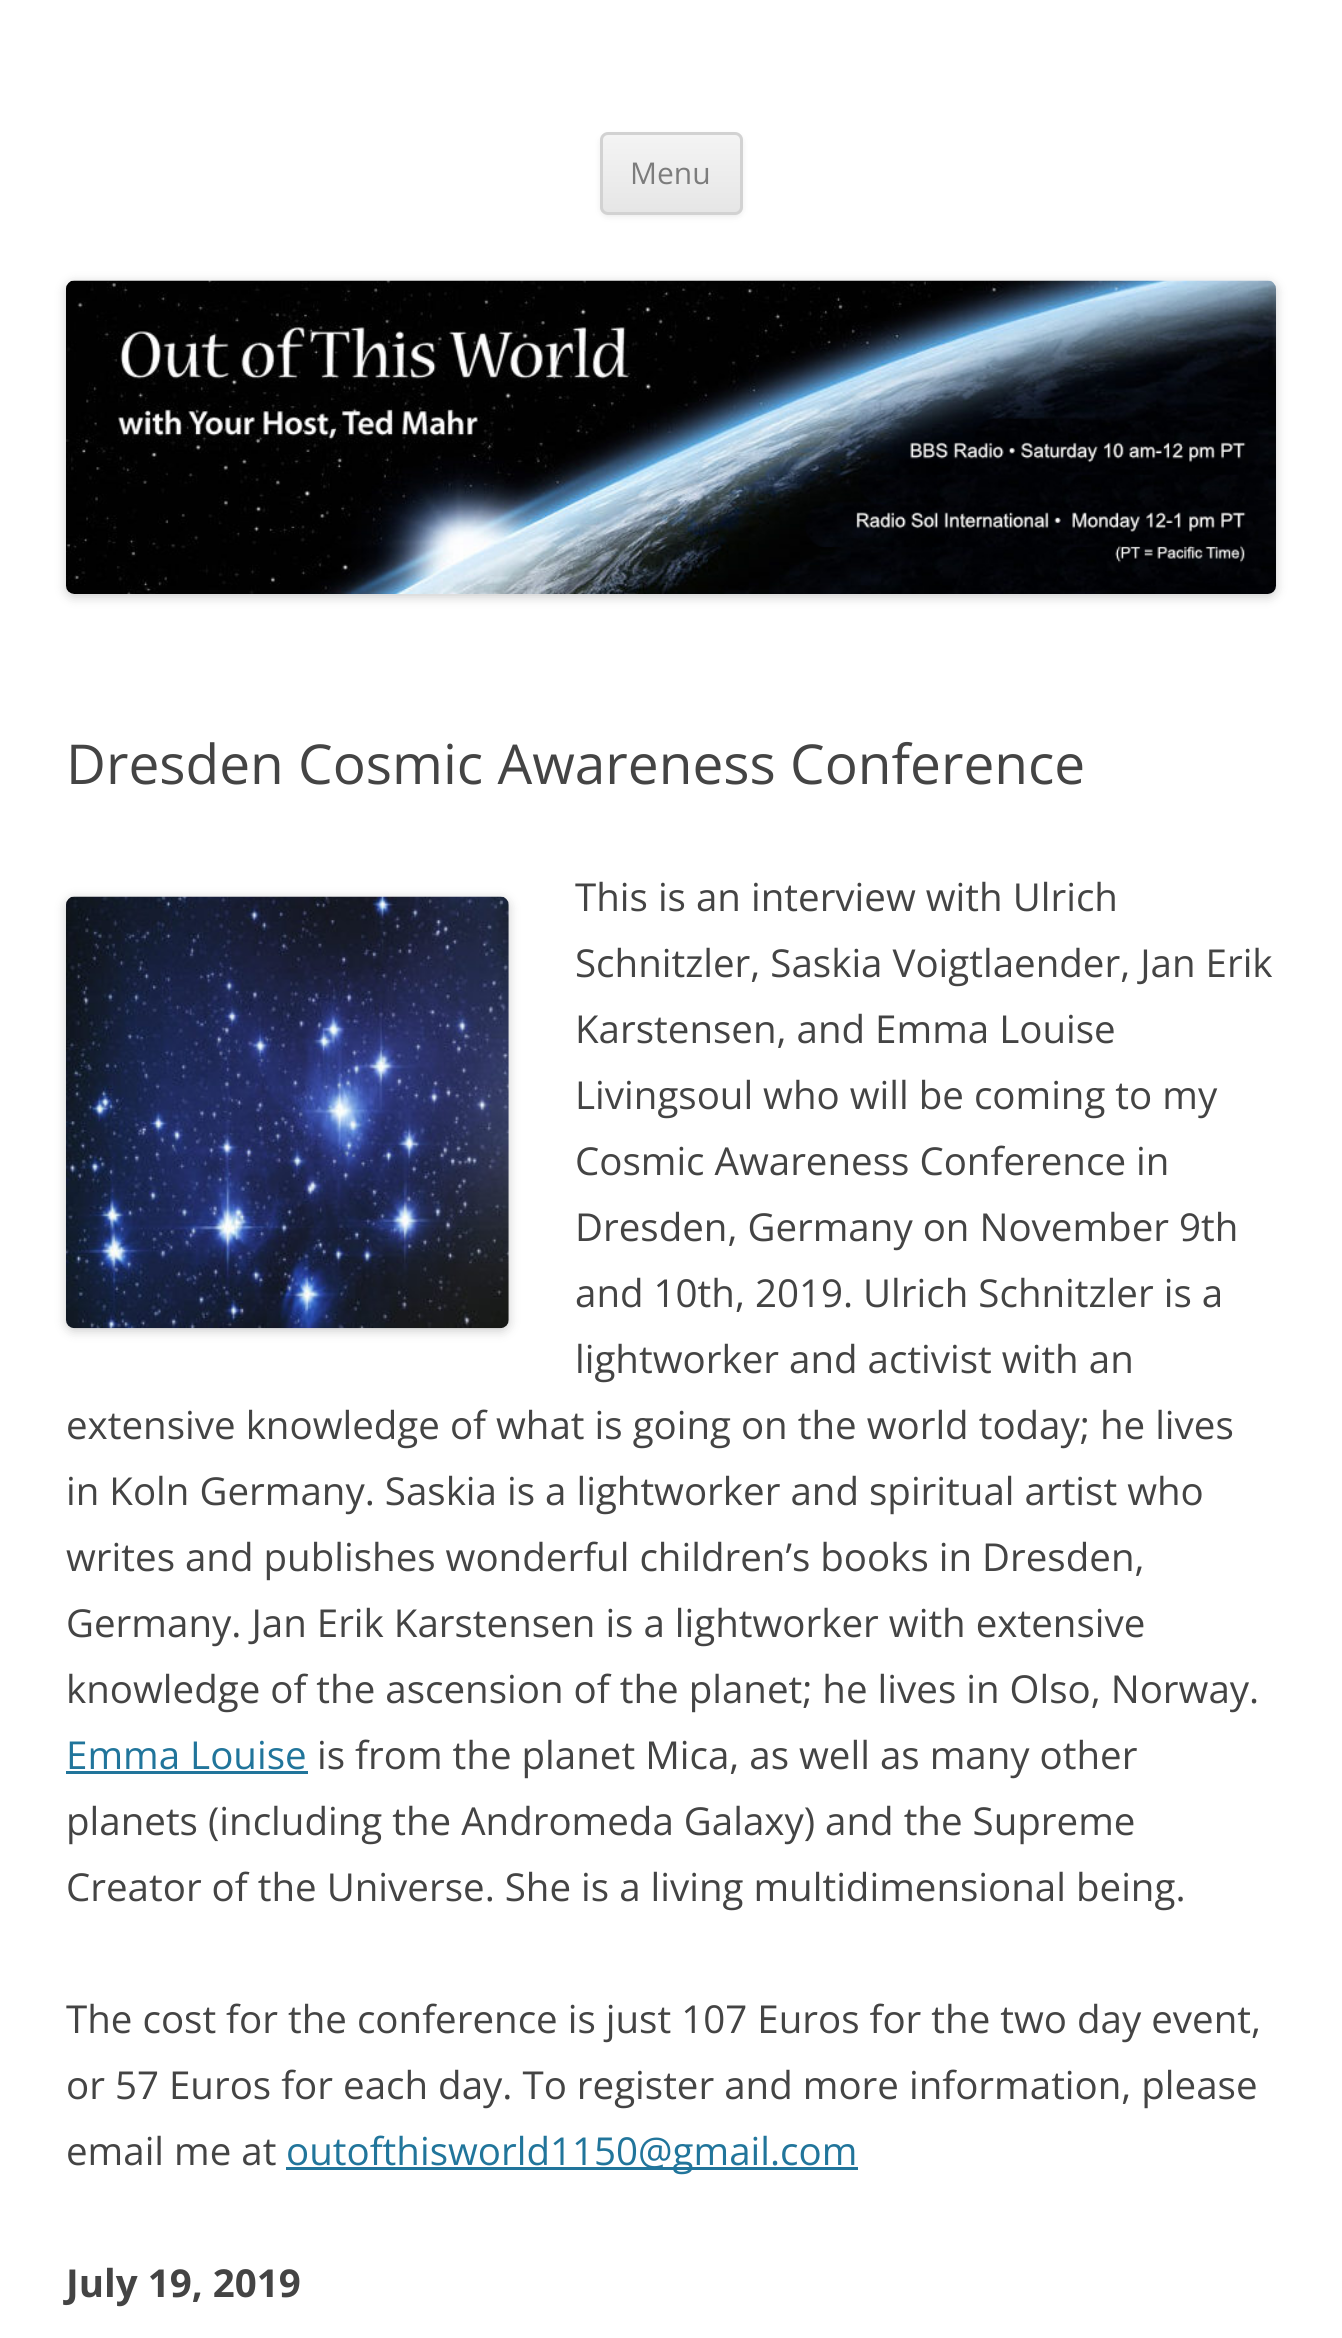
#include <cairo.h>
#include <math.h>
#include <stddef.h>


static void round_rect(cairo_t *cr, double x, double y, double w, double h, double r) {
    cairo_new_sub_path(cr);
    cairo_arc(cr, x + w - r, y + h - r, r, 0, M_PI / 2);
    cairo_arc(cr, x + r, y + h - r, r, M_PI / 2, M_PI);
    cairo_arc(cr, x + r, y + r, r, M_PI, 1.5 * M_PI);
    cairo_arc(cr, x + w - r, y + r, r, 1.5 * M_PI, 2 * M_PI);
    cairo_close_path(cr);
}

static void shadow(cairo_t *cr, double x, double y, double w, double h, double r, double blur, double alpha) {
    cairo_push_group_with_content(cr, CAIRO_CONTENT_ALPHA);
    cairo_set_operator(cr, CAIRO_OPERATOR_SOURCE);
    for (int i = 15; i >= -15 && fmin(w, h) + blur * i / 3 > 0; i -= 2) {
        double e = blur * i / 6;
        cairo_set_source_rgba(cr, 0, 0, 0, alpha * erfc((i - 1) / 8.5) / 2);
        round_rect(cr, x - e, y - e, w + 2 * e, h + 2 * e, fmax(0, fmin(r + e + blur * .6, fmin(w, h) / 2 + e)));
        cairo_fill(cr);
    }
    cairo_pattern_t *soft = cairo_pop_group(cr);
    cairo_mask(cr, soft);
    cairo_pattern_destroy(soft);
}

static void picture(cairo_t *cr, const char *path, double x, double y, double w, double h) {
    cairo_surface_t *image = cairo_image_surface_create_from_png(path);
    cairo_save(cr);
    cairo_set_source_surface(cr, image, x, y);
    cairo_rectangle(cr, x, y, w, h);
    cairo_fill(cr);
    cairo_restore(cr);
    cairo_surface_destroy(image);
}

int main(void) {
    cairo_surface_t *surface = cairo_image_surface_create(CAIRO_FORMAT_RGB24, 1342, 2338);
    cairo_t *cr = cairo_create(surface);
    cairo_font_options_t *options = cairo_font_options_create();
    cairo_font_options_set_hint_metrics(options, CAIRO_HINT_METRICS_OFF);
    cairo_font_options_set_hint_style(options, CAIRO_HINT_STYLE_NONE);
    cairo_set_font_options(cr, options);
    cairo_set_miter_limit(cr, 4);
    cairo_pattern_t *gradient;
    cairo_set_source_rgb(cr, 1, 1, 1);
    cairo_paint(cr);
    cairo_set_source_rgb(cr, 0.251, 0.251, 0.251);
    shadow(cr, 600, 135, 143, 82, 8, 3, 0.1);
    cairo_save(cr);
    round_rect(cr, 600, 132, 143, 83, 8);
    cairo_clip(cr);
    gradient = cairo_pattern_create_linear(671, 135, 671, 212);
    cairo_pattern_add_color_stop_rgba(gradient, 0, 0.957, 0.957, 0.957, 1);
    cairo_pattern_add_color_stop_rgba(gradient, 1, 0.902, 0.902, 0.902, 1);
    cairo_set_source(cr, gradient);
    cairo_pattern_destroy(gradient);
    cairo_rectangle(cr, 600, 135, 143, 77);
    cairo_fill(cr);
    cairo_restore(cr);
    round_rect(cr, 601.5, 133.5, 140, 80, 6.5);
    cairo_set_source_rgb(cr, 0.824, 0.824, 0.824);
    cairo_set_line_width(cr, 3);
    cairo_stroke(cr);
    cairo_select_font_face(cr, "Open Sans", CAIRO_FONT_SLANT_NORMAL, CAIRO_FONT_WEIGHT_NORMAL);
    cairo_set_font_size(cr, 30);
    cairo_set_source_rgb(cr, 0.486, 0.486, 0.486);
    cairo_move_to(cr, 630, 184);
    cairo_show_text(cr, "Menu");
    cairo_set_source_rgb(cr, 0, 0, 0);
    shadow(cr, 66, 283, 1210, 314, 8, 5.5, 0.2);
    picture(cr, "img1.png", 66, 280, 1210, 314);
    cairo_set_font_size(cr, 55);
    cairo_set_source_rgb(cr, 0.267, 0.267, 0.267);
    cairo_move_to(cr, 66, 784);
    cairo_show_text(cr, "Dresden Cosmic Awareness Conference");
    cairo_set_source_rgb(cr, 0, 0, 0);
    shadow(cr, 66, 899, 443, 432, 8, 5.5, 0.2);
    picture(cr, "img2.png", 66, 896, 443, 433);
    cairo_set_font_size(cr, 38.5);
    cairo_set_source_rgb(cr, 0.267, 0.267, 0.267);
    cairo_move_to(cr, 575, 911);
    cairo_show_text(cr, "This is an interview with Ulrich");
    cairo_move_to(cr, 575, 977);
    cairo_show_text(cr, "Schnitzler, Saskia Voigtlaender, Jan Erik");
    cairo_move_to(cr, 575, 1043);
    cairo_show_text(cr, "Karstensen, and Emma Louise");
    cairo_move_to(cr, 575, 1109);
    cairo_show_text(cr, "Livingsoul who will be coming to my");
    cairo_move_to(cr, 575, 1175);
    cairo_show_text(cr, "Cosmic Awareness Conference in");
    cairo_move_to(cr, 575, 1241);
    cairo_show_text(cr, "Dresden, Germany on November 9th");
    cairo_move_to(cr, 575, 1307);
    cairo_show_text(cr, "and 10th, 2019. Ulrich Schnitzler is a");
    cairo_move_to(cr, 575, 1373);
    cairo_show_text(cr, "lightworker and activist with an");
    cairo_move_to(cr, 66, 1439);
    cairo_show_text(cr, "extensive knowledge of what is going on the world today; he lives");
    cairo_move_to(cr, 66, 1505);
    cairo_show_text(cr, "in Koln Germany. Saskia is a lightworker and spiritual artist who");
    cairo_move_to(cr, 66, 1571);
    cairo_show_text(cr, "writes and publishes wonderful children’s books in Dresden,");
    cairo_move_to(cr, 66, 1637);
    cairo_show_text(cr, "Germany. Jan Erik Karstensen is a lightworker with extensive");
    cairo_move_to(cr, 66, 1703);
    cairo_show_text(cr, "knowledge of the ascension of the planet; he lives in Olso, Norway.");
    cairo_set_source_rgb(cr, 0.129, 0.459, 0.608);
    cairo_move_to(cr, 66, 1769);
    cairo_show_text(cr, "Emma Louise");
    cairo_rectangle(cr, 66, 1771, 242, 3);
    cairo_fill(cr);
    cairo_set_source_rgb(cr, 0.267, 0.267, 0.267);
    cairo_move_to(cr, 317, 1769);
    cairo_show_text(cr, "is from the planet Mica, as well as many other");
    cairo_move_to(cr, 66, 1835);
    cairo_show_text(cr, "planets (including the Andromeda Galaxy) and the Supreme");
    cairo_move_to(cr, 66, 1901);
    cairo_show_text(cr, "Creator of the Universe. She is a living multidimensional being.");
    cairo_move_to(cr, 66, 2033);
    cairo_show_text(cr, "The cost for the conference is just 107 Euros for the two day event,");
    cairo_move_to(cr, 66, 2099);
    cairo_show_text(cr, "or 57 Euros for each day. To register and more information, please");
    cairo_move_to(cr, 66, 2165);
    cairo_show_text(cr, "email me at");
    cairo_set_source_rgb(cr, 0.129, 0.459, 0.608);
    cairo_rectangle(cr, 286, 2167, 572, 3);
    cairo_fill(cr);
    cairo_move_to(cr, 286, 2165);
    cairo_show_text(cr, "outofthisworld1150@gmail.com");
    cairo_select_font_face(cr, "Open Sans", CAIRO_FONT_SLANT_NORMAL, CAIRO_FONT_WEIGHT_BOLD);
    cairo_set_source_rgb(cr, 0.267, 0.267, 0.267);
    cairo_move_to(cr, 66, 2297);
    cairo_show_text(cr, "July 19, 2019");
    cairo_surface_write_to_png(surface, "page.png");
    cairo_font_options_destroy(options);
    cairo_destroy(cr);
    cairo_surface_destroy(surface);
    return 0;
}
